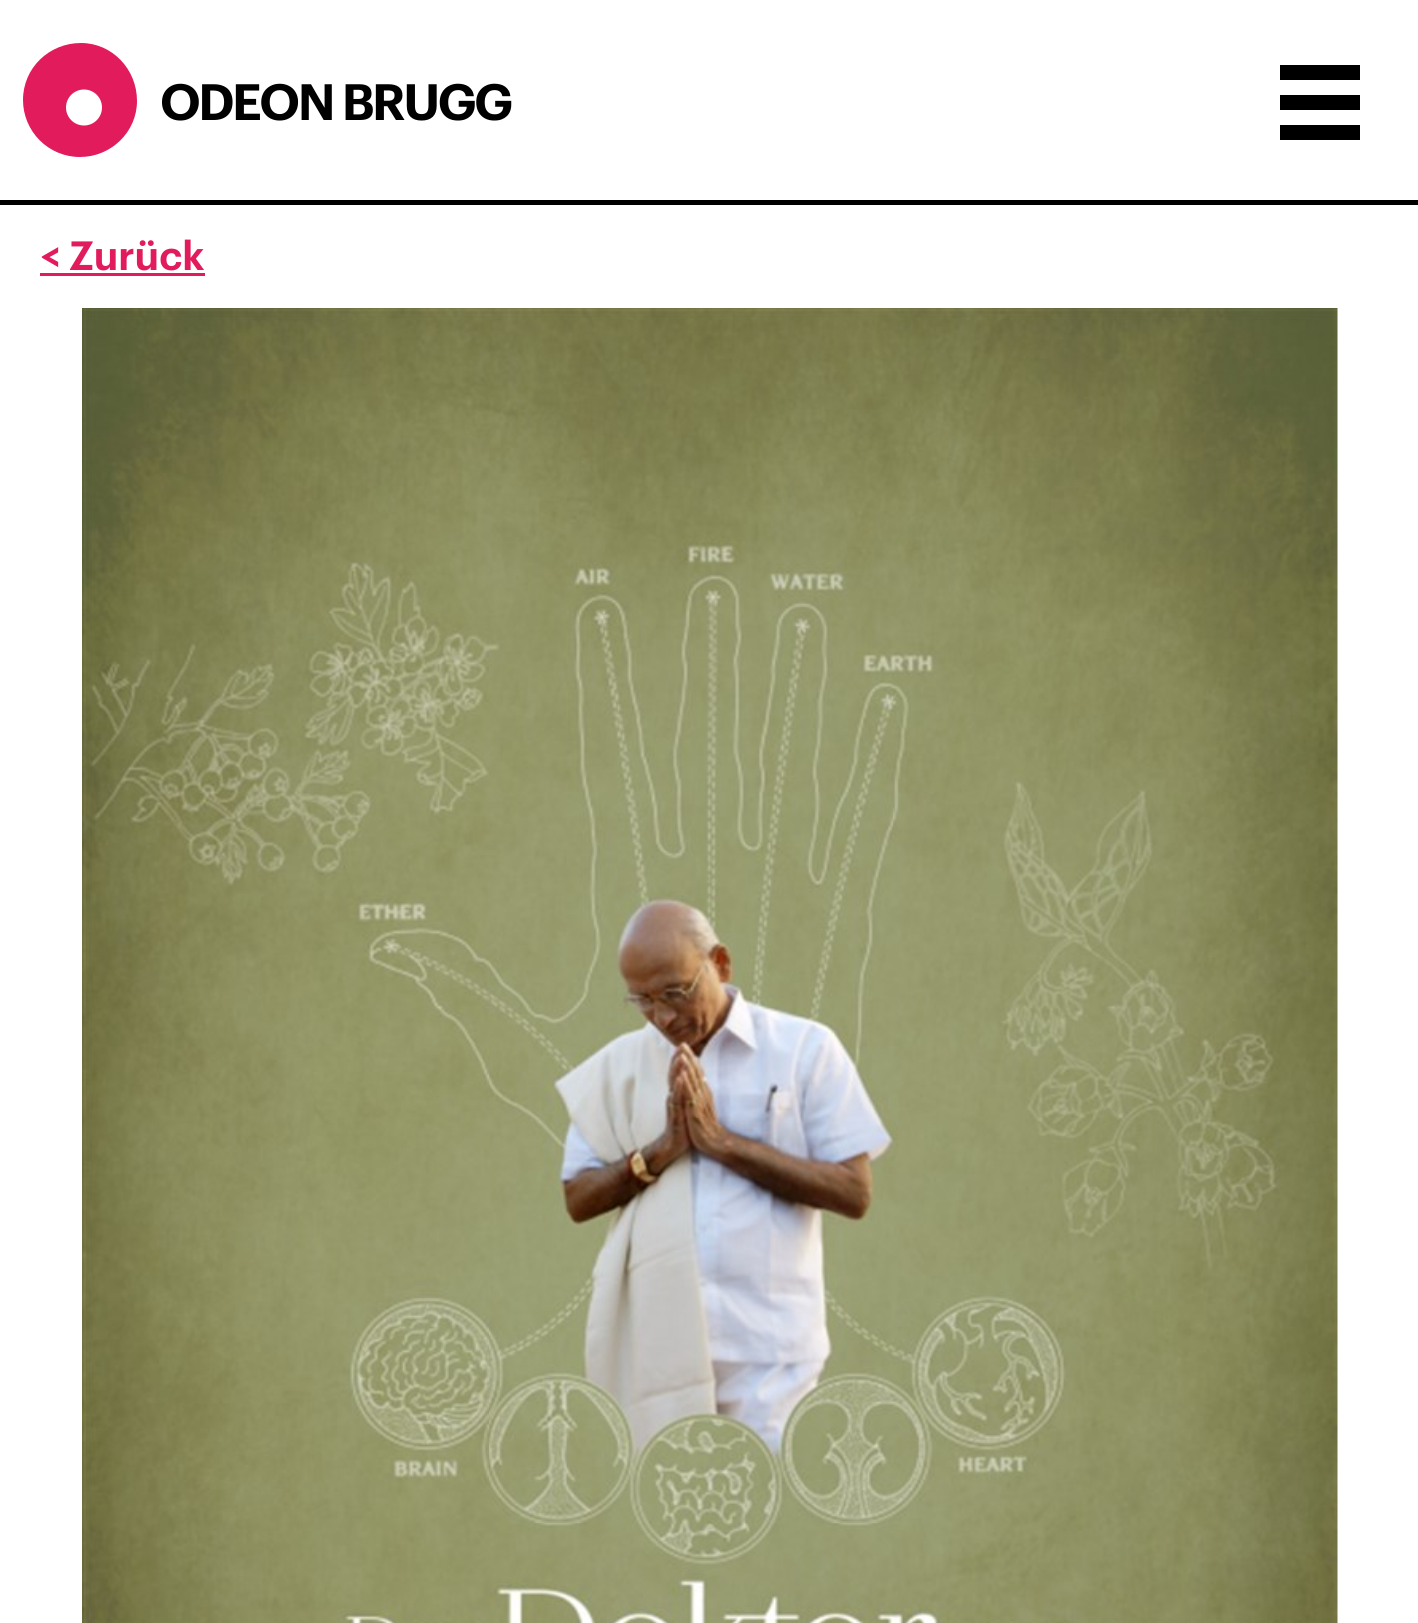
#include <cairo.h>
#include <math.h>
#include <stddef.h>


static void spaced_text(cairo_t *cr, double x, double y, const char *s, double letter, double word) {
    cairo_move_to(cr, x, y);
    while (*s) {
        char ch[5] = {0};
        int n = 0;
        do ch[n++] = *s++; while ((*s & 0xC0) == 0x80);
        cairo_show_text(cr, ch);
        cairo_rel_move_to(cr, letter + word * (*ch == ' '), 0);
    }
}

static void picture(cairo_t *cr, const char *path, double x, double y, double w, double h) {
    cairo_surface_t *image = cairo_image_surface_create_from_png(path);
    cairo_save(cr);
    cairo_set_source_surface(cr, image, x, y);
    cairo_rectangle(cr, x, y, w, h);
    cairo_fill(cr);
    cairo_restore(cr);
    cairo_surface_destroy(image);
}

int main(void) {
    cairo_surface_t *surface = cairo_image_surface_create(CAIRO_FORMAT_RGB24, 1418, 1623);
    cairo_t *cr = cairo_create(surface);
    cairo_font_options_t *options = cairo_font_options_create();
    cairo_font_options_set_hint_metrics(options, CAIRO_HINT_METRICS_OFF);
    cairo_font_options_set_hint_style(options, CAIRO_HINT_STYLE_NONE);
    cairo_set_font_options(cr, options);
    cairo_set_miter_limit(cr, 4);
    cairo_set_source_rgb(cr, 1, 1, 1);
    cairo_paint(cr);
    cairo_set_source_rgb(cr, 0, 0, 0);
    cairo_rectangle(cr, 0, 200, 1418, 5);
    cairo_fill(cr);
    cairo_set_source_rgb(cr, 0.886, 0.11, 0.361);
    cairo_new_path(cr);
    cairo_move_to(cr, 23, 100);
    cairo_curve_to(cr, 23, 131, 48, 157, 80, 157);
    cairo_curve_to(cr, 111, 157, 137, 132, 137, 101);
    cairo_curve_to(cr, 137, 69, 112, 43, 81, 43);
    cairo_curve_to(cr, 49, 43, 23, 68, 23, 100);
    cairo_fill(cr);
    cairo_set_source_rgb(cr, 1, 1, 1);
    cairo_arc(cr, 84, 107.5, 18, 0, 2 * M_PI);
    cairo_fill(cr);
    cairo_select_font_face(cr, "Graphik SemiBold", CAIRO_FONT_SLANT_NORMAL, CAIRO_FONT_WEIGHT_NORMAL);
    cairo_set_font_size(cr, 50);
    cairo_set_source_rgb(cr, 0, 0, 0);
    spaced_text(cr, 160, 120, "ODEON BRUGG", -2.5, 0);
    cairo_rectangle(cr, 1280, 65, 80, 15);
    cairo_fill(cr);
    cairo_rectangle(cr, 1280, 95, 80, 15);
    cairo_fill(cr);
    cairo_rectangle(cr, 1280, 125, 80, 15);
    cairo_fill(cr);
    cairo_set_font_size(cr, 40);
    cairo_set_source_rgb(cr, 0.886, 0.11, 0.361);
    cairo_move_to(cr, 40, 270);
    cairo_show_text(cr, "< Zurück");
    cairo_rectangle(cr, 40, 273, 165, 3);
    cairo_fill(cr);
    picture(cr, "img1.png", 82, 308, 1256, 1315);
    cairo_surface_write_to_png(surface, "page.png");
    cairo_font_options_destroy(options);
    cairo_destroy(cr);
    cairo_surface_destroy(surface);
    return 0;
}
